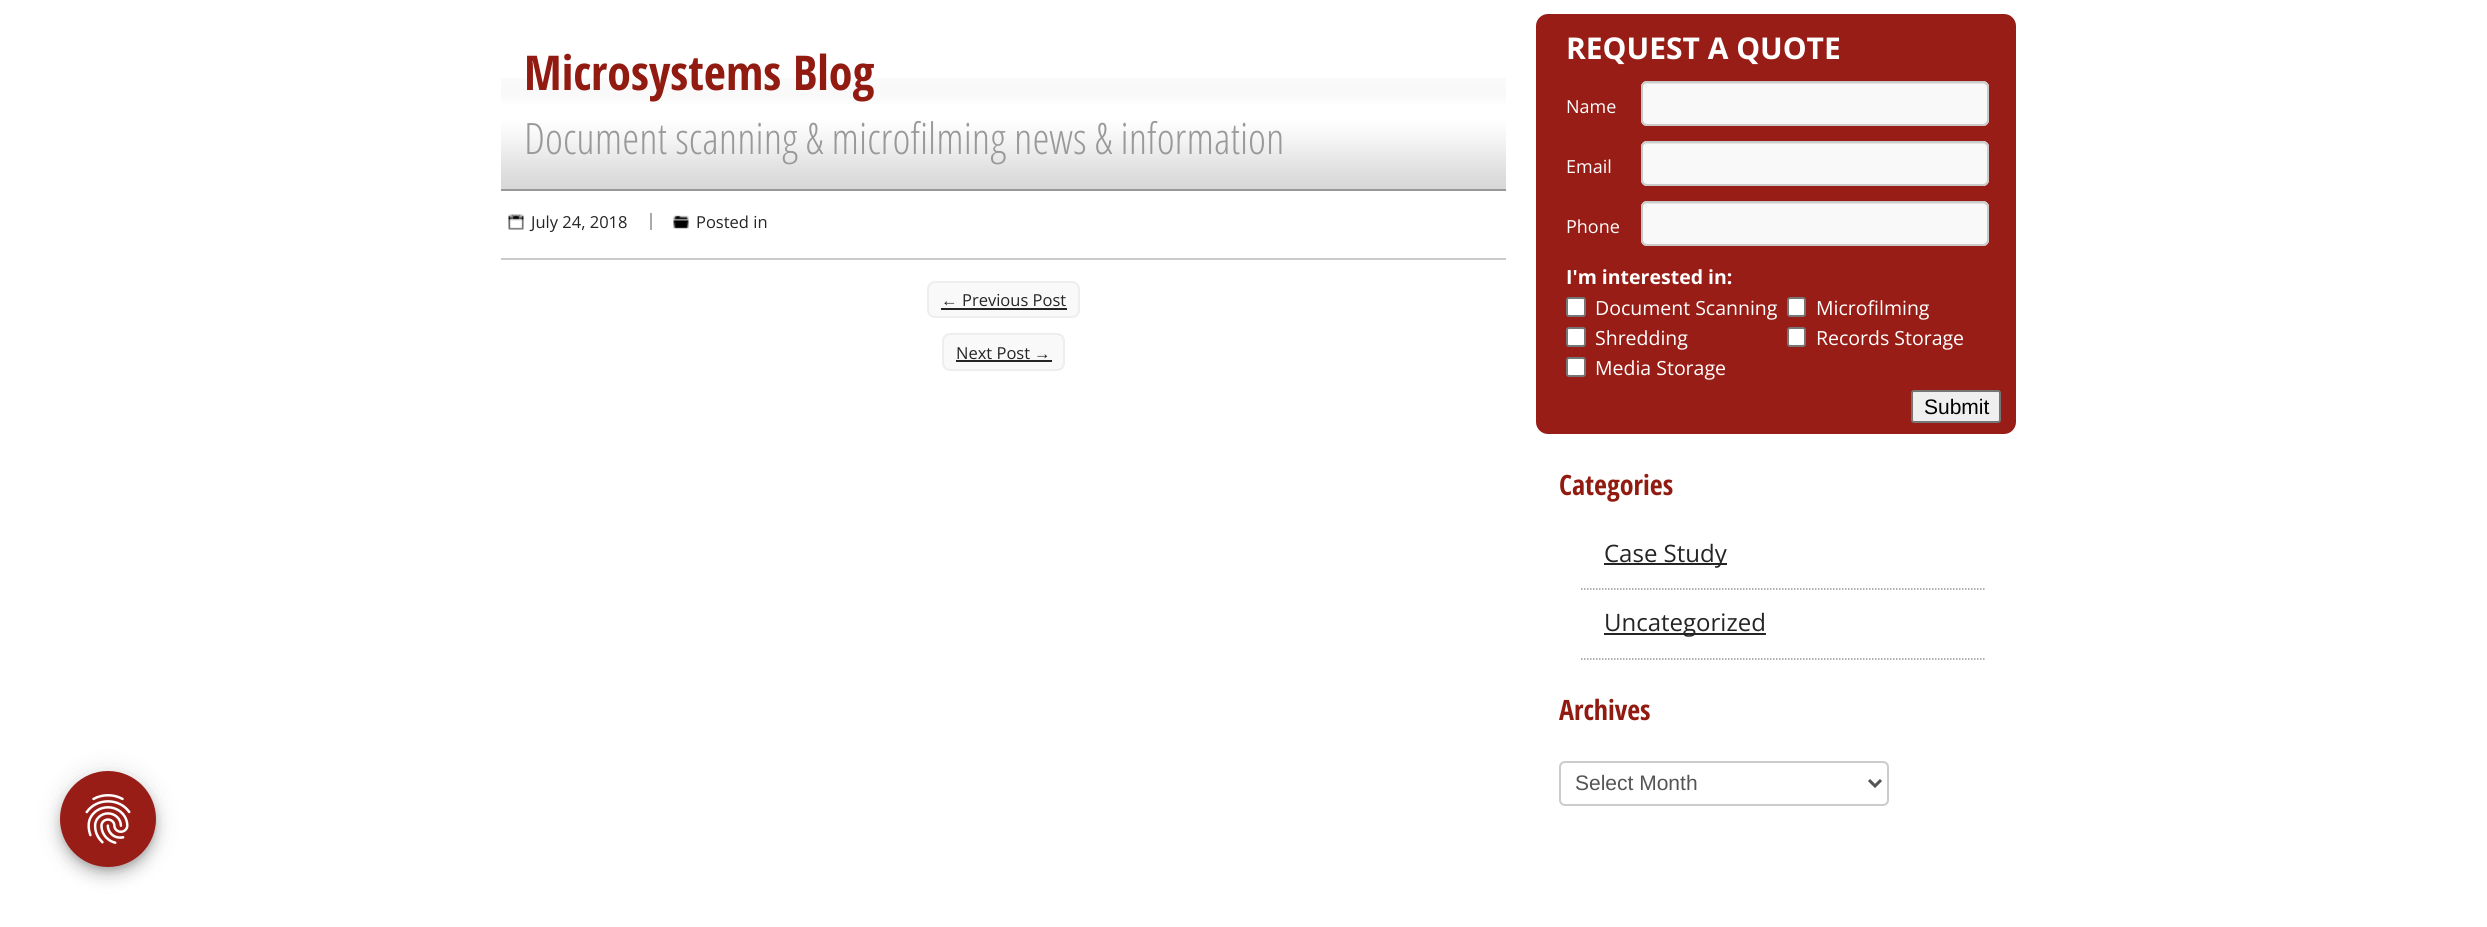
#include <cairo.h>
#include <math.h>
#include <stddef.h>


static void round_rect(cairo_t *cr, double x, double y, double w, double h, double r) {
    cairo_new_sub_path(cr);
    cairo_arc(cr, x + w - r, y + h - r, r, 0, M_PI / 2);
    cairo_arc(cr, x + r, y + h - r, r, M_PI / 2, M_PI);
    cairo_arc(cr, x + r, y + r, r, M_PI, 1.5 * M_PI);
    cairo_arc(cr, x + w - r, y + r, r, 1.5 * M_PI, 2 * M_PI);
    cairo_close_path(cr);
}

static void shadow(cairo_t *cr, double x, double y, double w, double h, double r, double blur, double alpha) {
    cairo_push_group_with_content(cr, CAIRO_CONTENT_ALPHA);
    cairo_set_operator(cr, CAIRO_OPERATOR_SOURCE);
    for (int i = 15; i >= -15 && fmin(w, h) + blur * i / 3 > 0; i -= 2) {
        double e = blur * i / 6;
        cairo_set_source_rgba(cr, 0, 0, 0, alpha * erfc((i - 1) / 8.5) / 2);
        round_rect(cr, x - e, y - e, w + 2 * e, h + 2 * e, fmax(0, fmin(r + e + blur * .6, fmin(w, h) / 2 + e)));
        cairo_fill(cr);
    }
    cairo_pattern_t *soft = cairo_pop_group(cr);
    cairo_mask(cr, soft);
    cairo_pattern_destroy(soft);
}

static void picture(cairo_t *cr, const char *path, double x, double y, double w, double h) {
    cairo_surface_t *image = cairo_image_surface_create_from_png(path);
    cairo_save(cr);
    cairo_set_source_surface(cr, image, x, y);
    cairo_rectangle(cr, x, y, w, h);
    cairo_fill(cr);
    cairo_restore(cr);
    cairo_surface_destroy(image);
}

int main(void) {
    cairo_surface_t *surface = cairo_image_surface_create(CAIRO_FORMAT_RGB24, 2487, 927);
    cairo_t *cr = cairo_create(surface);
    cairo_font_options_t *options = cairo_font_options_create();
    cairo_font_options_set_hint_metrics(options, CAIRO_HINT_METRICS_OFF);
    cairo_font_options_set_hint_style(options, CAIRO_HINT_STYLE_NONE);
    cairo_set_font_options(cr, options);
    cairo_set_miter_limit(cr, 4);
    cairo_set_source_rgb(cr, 1, 1, 1);
    cairo_paint(cr);
    picture(cr, "img1.png", 501, 78, 1005, 111);
    cairo_set_source_rgb(cr, 0.6, 0.6, 0.6);
    cairo_rectangle(cr, 501, 189, 1005, 2);
    cairo_fill(cr);
    cairo_select_font_face(cr, "Open Sans Condensed", CAIRO_FONT_SLANT_NORMAL, CAIRO_FONT_WEIGHT_BOLD);
    cairo_set_font_size(cr, 48);
    cairo_set_source_rgb(cr, 0.573, 0.106, 0.067);
    cairo_move_to(cr, 524, 90);
    cairo_show_text(cr, "Microsystems Blog");
    cairo_select_font_face(cr, "Open Sans Condensed Light", CAIRO_FONT_SLANT_NORMAL, CAIRO_FONT_WEIGHT_NORMAL);
    cairo_set_font_size(cr, 43.25);
    cairo_set_source_rgb(cr, 0.6, 0.6, 0.6);
    cairo_move_to(cr, 524, 154);
    cairo_show_text(cr, "Document scanning & microfilming news & information");
    picture(cr, "img2.png", 508, 214, 16, 16);
    cairo_set_source_rgb(cr, 0.667, 0.667, 0.667);
    cairo_rectangle(cr, 650, 213, 2, 17);
    cairo_fill(cr);
    cairo_select_font_face(cr, "Open Sans", CAIRO_FONT_SLANT_NORMAL, CAIRO_FONT_WEIGHT_NORMAL);
    cairo_set_font_size(cr, 16.5);
    cairo_set_source_rgb(cr, 0.145, 0.145, 0.145);
    cairo_move_to(cr, 531, 228);
    cairo_show_text(cr, "July 24, 2018");
    picture(cr, "img3.png", 673, 215, 16, 14);
    cairo_move_to(cr, 696, 228);
    cairo_show_text(cr, "Posted in");
    cairo_set_source_rgb(cr, 0.792, 0.792, 0.792);
    cairo_rectangle(cr, 501, 258, 1005, 2);
    cairo_fill(cr);
    cairo_set_source_rgb(cr, 0.976, 0.976, 0.976);
    round_rect(cr, 928, 282, 151, 35, 7);
    cairo_fill_preserve(cr);
    cairo_set_source_rgb(cr, 0.933, 0.933, 0.933);
    cairo_stroke(cr);
    cairo_select_font_face(cr, "Liberation Sans", CAIRO_FONT_SLANT_NORMAL, CAIRO_FONT_WEIGHT_NORMAL);
    cairo_set_source_rgb(cr, 0.145, 0.145, 0.145);
    cairo_move_to(cr, 941, 306);
    cairo_show_text(cr, "←");
    cairo_rectangle(cr, 941, 308, 126, 2);
    cairo_fill(cr);
    cairo_select_font_face(cr, "Open Sans", CAIRO_FONT_SLANT_NORMAL, CAIRO_FONT_WEIGHT_NORMAL);
    cairo_move_to(cr, 962, 306);
    cairo_show_text(cr, "Previous Post");
    cairo_set_source_rgb(cr, 0.976, 0.976, 0.976);
    round_rect(cr, 943, 334, 121, 36, 7);
    cairo_fill_preserve(cr);
    cairo_set_source_rgb(cr, 0.933, 0.933, 0.933);
    cairo_stroke(cr);
    cairo_set_source_rgb(cr, 0.145, 0.145, 0.145);
    cairo_move_to(cr, 956, 359);
    cairo_show_text(cr, "Next Post");
    cairo_select_font_face(cr, "Liberation Sans", CAIRO_FONT_SLANT_NORMAL, CAIRO_FONT_WEIGHT_NORMAL);
    cairo_move_to(cr, 1034, 359);
    cairo_show_text(cr, "→");
    cairo_rectangle(cr, 956, 360, 96, 2);
    cairo_fill(cr);
    cairo_set_source_rgb(cr, 0.596, 0.114, 0.086);
    round_rect(cr, 1536, 14, 480, 420, 12);
    cairo_fill(cr);
    cairo_select_font_face(cr, "Open Sans", CAIRO_FONT_SLANT_NORMAL, CAIRO_FONT_WEIGHT_BOLD);
    cairo_set_font_size(cr, 30);
    cairo_set_source_rgb(cr, 1, 1, 1);
    cairo_move_to(cr, 1566, 59);
    cairo_show_text(cr, "REQUEST A QUOTE");
    cairo_select_font_face(cr, "Open Sans", CAIRO_FONT_SLANT_NORMAL, CAIRO_FONT_WEIGHT_NORMAL);
    cairo_set_font_size(cr, 18);
    cairo_move_to(cr, 1566, 113);
    cairo_show_text(cr, "Name");
    cairo_set_source_rgb(cr, 0.976, 0.976, 0.976);
    round_rect(cr, 1641, 81, 348, 45, 6);
    cairo_fill(cr);
    cairo_set_source_rgb(cr, 0.902, 0.902, 0.902);
    cairo_new_path(cr);
    cairo_move_to(cr, 1647, 84);
    cairo_line_to(cr, 1983, 84);
    cairo_curve_to(cr, 1985, 84, 1988, 86, 1988, 88);
    cairo_curve_to(cr, 1988, 85, 1986, 83, 1983, 83);
    cairo_line_to(cr, 1648, 83);
    cairo_curve_to(cr, 1646, 83, 1645, 84, 1644, 85);
    cairo_close_path(cr);
    cairo_fill(cr);
    round_rect(cr, 1642, 82, 346, 43, 5);
    cairo_set_source_rgb(cr, 0.792, 0.792, 0.792);
    cairo_stroke(cr);
    cairo_set_source_rgb(cr, 1, 1, 1);
    cairo_move_to(cr, 1566, 173);
    cairo_show_text(cr, "Email");
    cairo_set_source_rgb(cr, 0.976, 0.976, 0.976);
    round_rect(cr, 1641, 141, 348, 45, 6);
    cairo_fill(cr);
    cairo_set_source_rgb(cr, 0.902, 0.902, 0.902);
    cairo_new_path(cr);
    cairo_move_to(cr, 1647, 144);
    cairo_line_to(cr, 1983, 144);
    cairo_curve_to(cr, 1985, 144, 1988, 146, 1988, 148);
    cairo_curve_to(cr, 1988, 145, 1986, 143, 1983, 143);
    cairo_line_to(cr, 1648, 143);
    cairo_curve_to(cr, 1646, 143, 1645, 144, 1644, 145);
    cairo_close_path(cr);
    cairo_fill(cr);
    round_rect(cr, 1642, 142, 346, 43, 5);
    cairo_set_source_rgb(cr, 0.792, 0.792, 0.792);
    cairo_stroke(cr);
    cairo_set_source_rgb(cr, 1, 1, 1);
    cairo_move_to(cr, 1566, 233);
    cairo_show_text(cr, "Phone");
    cairo_set_source_rgb(cr, 0.976, 0.976, 0.976);
    round_rect(cr, 1641, 201, 348, 45, 6);
    cairo_fill(cr);
    cairo_set_source_rgb(cr, 0.902, 0.902, 0.902);
    cairo_new_path(cr);
    cairo_move_to(cr, 1647, 204);
    cairo_line_to(cr, 1983, 204);
    cairo_curve_to(cr, 1985, 204, 1988, 206, 1988, 208);
    cairo_curve_to(cr, 1988, 205, 1986, 203, 1983, 203);
    cairo_line_to(cr, 1648, 203);
    cairo_curve_to(cr, 1646, 203, 1645, 204, 1644, 205);
    cairo_close_path(cr);
    cairo_fill(cr);
    round_rect(cr, 1642, 202, 346, 43, 5);
    cairo_set_source_rgb(cr, 0.792, 0.792, 0.792);
    cairo_stroke(cr);
    cairo_select_font_face(cr, "Open Sans", CAIRO_FONT_SLANT_NORMAL, CAIRO_FONT_WEIGHT_BOLD);
    cairo_set_font_size(cr, 19.5);
    cairo_set_source_rgb(cr, 1, 1, 1);
    cairo_move_to(cr, 1566, 284);
    cairo_show_text(cr, "I'm interested in:");
    round_rect(cr, 1567, 298, 18, 18, 2);
    cairo_fill_preserve(cr);
    cairo_set_source_rgb(cr, 0.463, 0.463, 0.463);
    cairo_stroke(cr);
    cairo_select_font_face(cr, "Open Sans", CAIRO_FONT_SLANT_NORMAL, CAIRO_FONT_WEIGHT_NORMAL);
    cairo_set_source_rgb(cr, 1, 1, 1);
    cairo_move_to(cr, 1595, 315);
    cairo_show_text(cr, "Document Scanning");
    round_rect(cr, 1788, 298, 17, 18, 2);
    cairo_fill_preserve(cr);
    cairo_set_source_rgb(cr, 0.463, 0.463, 0.463);
    cairo_stroke(cr);
    cairo_set_source_rgb(cr, 1, 1, 1);
    cairo_move_to(cr, 1816, 315);
    cairo_show_text(cr, "Microfilming");
    round_rect(cr, 1567, 328, 18, 18, 2);
    cairo_fill_preserve(cr);
    cairo_set_source_rgb(cr, 0.463, 0.463, 0.463);
    cairo_stroke(cr);
    cairo_set_source_rgb(cr, 1, 1, 1);
    cairo_move_to(cr, 1595, 345);
    cairo_show_text(cr, "Shredding");
    round_rect(cr, 1788, 328, 17, 18, 2);
    cairo_fill_preserve(cr);
    cairo_set_source_rgb(cr, 0.463, 0.463, 0.463);
    cairo_stroke(cr);
    cairo_set_source_rgb(cr, 1, 1, 1);
    cairo_move_to(cr, 1816, 345);
    cairo_show_text(cr, "Records Storage");
    round_rect(cr, 1567, 358, 18, 18, 2);
    cairo_fill_preserve(cr);
    cairo_set_source_rgb(cr, 0.463, 0.463, 0.463);
    cairo_stroke(cr);
    cairo_set_source_rgb(cr, 1, 1, 1);
    cairo_move_to(cr, 1595, 375);
    cairo_show_text(cr, "Media Storage");
    cairo_set_source_rgb(cr, 0.937, 0.937, 0.937);
    round_rect(cr, 1912, 391, 88, 31, 2);
    cairo_fill_preserve(cr);
    cairo_set_source_rgb(cr, 0.463, 0.463, 0.463);
    cairo_stroke(cr);
    cairo_select_font_face(cr, "Liberation Sans", CAIRO_FONT_SLANT_NORMAL, CAIRO_FONT_WEIGHT_NORMAL);
    cairo_set_font_size(cr, 21);
    cairo_set_source_rgb(cr, 0, 0, 0);
    cairo_move_to(cr, 1924, 414);
    cairo_show_text(cr, "Submit");
    cairo_select_font_face(cr, "Open Sans Condensed", CAIRO_FONT_SLANT_NORMAL, CAIRO_FONT_WEIGHT_BOLD);
    cairo_set_font_size(cr, 28);
    cairo_set_source_rgb(cr, 0.573, 0.106, 0.067);
    cairo_move_to(cr, 1559, 495);
    cairo_show_text(cr, "Categories");
    cairo_new_path(cr);
    cairo_move_to(cr, 1581, 589);
    cairo_line_to(cr, 1986, 589);
    cairo_set_source_rgb(cr, 0.592, 0.592, 0.592);
    cairo_set_line_width(cr, 1.5);
    cairo_set_dash(cr, (double[]){1.5, 1.5}, 2, 0);
    cairo_stroke(cr);
    cairo_set_source_rgb(cr, 0.145, 0.145, 0.145);
    cairo_rectangle(cr, 1604, 563, 123, 2);
    cairo_fill(cr);
    cairo_select_font_face(cr, "Open Sans", CAIRO_FONT_SLANT_NORMAL, CAIRO_FONT_WEIGHT_NORMAL);
    cairo_set_font_size(cr, 24);
    cairo_move_to(cr, 1604, 562);
    cairo_show_text(cr, "Case Study");
    cairo_new_path(cr);
    cairo_move_to(cr, 1581, 659);
    cairo_line_to(cr, 1986, 659);
    cairo_set_source_rgb(cr, 0.592, 0.592, 0.592);
    cairo_stroke(cr);
    cairo_set_source_rgb(cr, 0.145, 0.145, 0.145);
    cairo_rectangle(cr, 1604, 633, 162, 2);
    cairo_fill(cr);
    cairo_move_to(cr, 1604, 631);
    cairo_show_text(cr, "Uncategorized");
    cairo_select_font_face(cr, "Open Sans Condensed", CAIRO_FONT_SLANT_NORMAL, CAIRO_FONT_WEIGHT_BOLD);
    cairo_set_font_size(cr, 28);
    cairo_set_source_rgb(cr, 0.573, 0.106, 0.067);
    cairo_move_to(cr, 1559, 720);
    cairo_show_text(cr, "Archives");
    round_rect(cr, 1560, 762, 328, 43, 5);
    cairo_set_source_rgb(cr, 0.8, 0.8, 0.8);
    cairo_set_line_width(cr, 2);
    cairo_set_dash(cr, NULL, 0, 0);
    cairo_stroke(cr);
    cairo_new_path(cr);
    cairo_move_to(cr, 1869, 780);
    cairo_line_to(cr, 1875, 786);
    cairo_line_to(cr, 1881, 780);
    cairo_set_source_rgb(cr, 0.333, 0.333, 0.333);
    cairo_set_line_width(cr, 3);
    cairo_stroke(cr);
    cairo_select_font_face(cr, "Liberation Sans", CAIRO_FONT_SLANT_NORMAL, CAIRO_FONT_WEIGHT_NORMAL);
    cairo_set_font_size(cr, 21);
    cairo_move_to(cr, 1575, 790);
    cairo_show_text(cr, "Select Month");
    cairo_set_source_rgb(cr, 0, 0, 0);
    shadow(cr, 60, 773, 96, 96, 48, 13.5, 0.12);
    shadow(cr, 60, 780, 96, 96, 48, 7.5, 0.14);
    shadow(cr, 62, 777, 93, 93, 46.5, 4, 0.2);
    cairo_set_source_rgb(cr, 0.596, 0.114, 0.086);
    cairo_arc(cr, 108, 819, 48, 0, 2 * M_PI);
    cairo_fill(cr);
    picture(cr, "img4.png", 85, 794, 46, 50);
    cairo_surface_write_to_png(surface, "page.png");
    cairo_font_options_destroy(options);
    cairo_destroy(cr);
    cairo_surface_destroy(surface);
    return 0;
}
